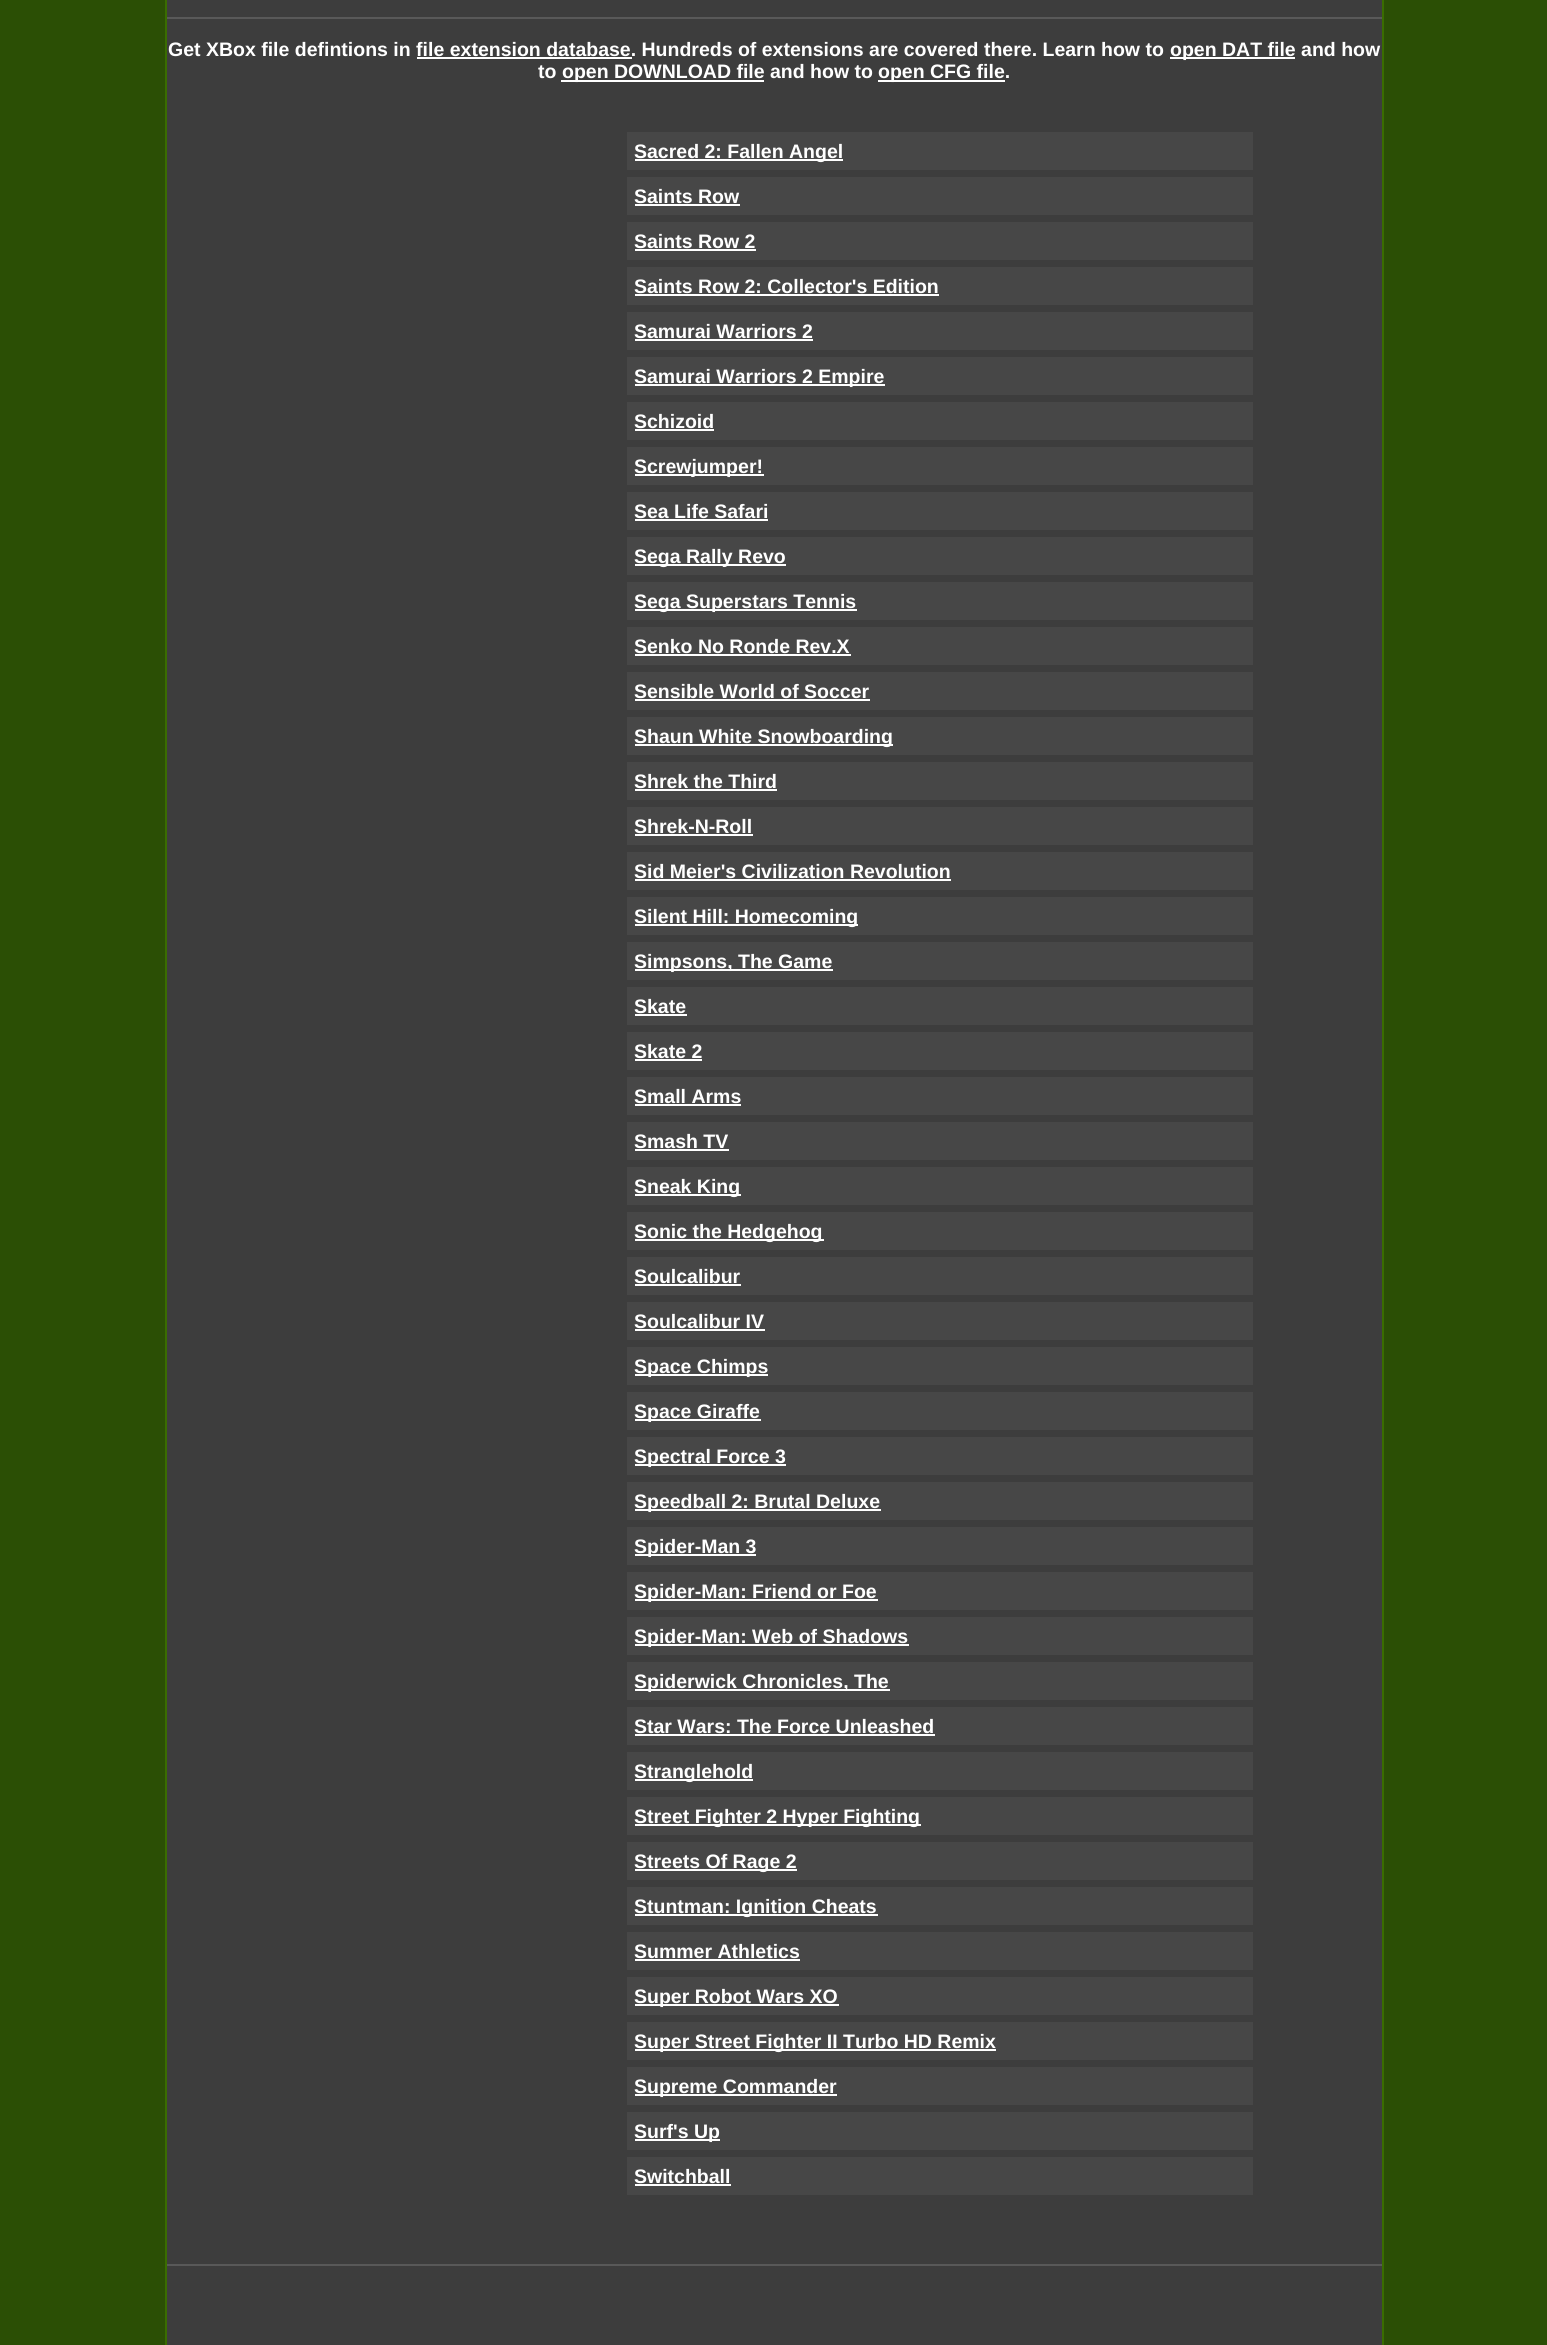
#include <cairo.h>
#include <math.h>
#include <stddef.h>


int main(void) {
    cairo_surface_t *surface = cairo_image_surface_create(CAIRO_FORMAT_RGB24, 1547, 2345);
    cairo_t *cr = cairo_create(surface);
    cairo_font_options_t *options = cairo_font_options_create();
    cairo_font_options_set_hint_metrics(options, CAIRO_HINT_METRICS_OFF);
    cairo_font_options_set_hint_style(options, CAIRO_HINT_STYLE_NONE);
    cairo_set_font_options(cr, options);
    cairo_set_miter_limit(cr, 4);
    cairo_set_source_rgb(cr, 0.169, 0.31, 0.02);
    cairo_paint(cr);
    cairo_set_source_rgb(cr, 0.239, 0.239, 0.239);
    cairo_rectangle(cr, 167, 0, 1215, 2345);
    cairo_fill(cr);
    cairo_set_source_rgb(cr, 0.227, 0.427, 0);
    cairo_rectangle(cr, 1382, 0, 2, 2345);
    cairo_fill(cr);
    cairo_rectangle(cr, 165, 0, 2, 2345);
    cairo_fill(cr);
    cairo_set_source_rgb(cr, 0.349, 0.349, 0.349);
    cairo_rectangle(cr, 167, 17, 1215, 2);
    cairo_fill(cr);
    cairo_select_font_face(cr, "Liberation Sans", CAIRO_FONT_SLANT_NORMAL, CAIRO_FONT_WEIGHT_BOLD);
    cairo_set_font_size(cr, 19.5);
    cairo_set_source_rgb(cr, 1, 1, 1);
    cairo_move_to(cr, 168, 56);
    cairo_show_text(cr, "Get XBox file defintions in file extension database. Hundreds of extensions are covered there. Learn how to");
    cairo_rectangle(cr, 1170, 57, 125, 2);
    cairo_fill(cr);
    cairo_move_to(cr, 1170, 56);
    cairo_show_text(cr, "open DAT file and how");
    cairo_rectangle(cr, 417, 57, 215, 2);
    cairo_fill(cr);
    cairo_move_to(cr, 538, 78);
    cairo_show_text(cr, "to");
    cairo_rectangle(cr, 561, 80, 203, 2);
    cairo_fill(cr);
    cairo_move_to(cr, 562, 78);
    cairo_show_text(cr, "open DOWNLOAD file and how to");
    cairo_rectangle(cr, 878, 80, 127, 2);
    cairo_fill(cr);
    cairo_move_to(cr, 878, 78);
    cairo_show_text(cr, "open CFG file.");
    cairo_set_source_rgb(cr, 0.278, 0.278, 0.278);
    cairo_rectangle(cr, 627, 132, 626, 38);
    cairo_fill(cr);
    cairo_set_source_rgb(cr, 1, 1, 1);
    cairo_rectangle(cr, 635, 159, 208, 2);
    cairo_fill(cr);
    cairo_move_to(cr, 634, 158);
    cairo_show_text(cr, "Sacred 2: Fallen Angel");
    cairo_set_source_rgb(cr, 0.278, 0.278, 0.278);
    cairo_rectangle(cr, 627, 177, 626, 38);
    cairo_fill(cr);
    cairo_set_source_rgb(cr, 1, 1, 1);
    cairo_move_to(cr, 634, 203);
    cairo_show_text(cr, "Saints Row");
    cairo_rectangle(cr, 635, 204, 105, 2);
    cairo_fill(cr);
    cairo_set_source_rgb(cr, 0.278, 0.278, 0.278);
    cairo_rectangle(cr, 627, 222, 626, 38);
    cairo_fill(cr);
    cairo_set_source_rgb(cr, 1, 1, 1);
    cairo_move_to(cr, 634, 248);
    cairo_show_text(cr, "Saints Row 2");
    cairo_rectangle(cr, 635, 249, 121, 2);
    cairo_fill(cr);
    cairo_set_source_rgb(cr, 0.278, 0.278, 0.278);
    cairo_rectangle(cr, 627, 267, 626, 38);
    cairo_fill(cr);
    cairo_set_source_rgb(cr, 1, 1, 1);
    cairo_move_to(cr, 634, 293);
    cairo_show_text(cr, "Saints Row 2: Collector's Edition");
    cairo_rectangle(cr, 635, 294, 304, 2);
    cairo_fill(cr);
    cairo_set_source_rgb(cr, 0.278, 0.278, 0.278);
    cairo_rectangle(cr, 627, 312, 626, 38);
    cairo_fill(cr);
    cairo_set_source_rgb(cr, 1, 1, 1);
    cairo_move_to(cr, 634, 338);
    cairo_show_text(cr, "Samurai Warriors 2");
    cairo_rectangle(cr, 635, 339, 178, 2);
    cairo_fill(cr);
    cairo_set_source_rgb(cr, 0.278, 0.278, 0.278);
    cairo_rectangle(cr, 627, 357, 626, 38);
    cairo_fill(cr);
    cairo_set_source_rgb(cr, 1, 1, 1);
    cairo_rectangle(cr, 635, 384, 250, 2);
    cairo_fill(cr);
    cairo_move_to(cr, 634, 383);
    cairo_show_text(cr, "Samurai Warriors 2 Empire");
    cairo_set_source_rgb(cr, 0.278, 0.278, 0.278);
    cairo_rectangle(cr, 627, 402, 626, 38);
    cairo_fill(cr);
    cairo_set_source_rgb(cr, 1, 1, 1);
    cairo_move_to(cr, 634, 428);
    cairo_show_text(cr, "Schizoid");
    cairo_rectangle(cr, 635, 429, 79, 2);
    cairo_fill(cr);
    cairo_set_source_rgb(cr, 0.278, 0.278, 0.278);
    cairo_rectangle(cr, 627, 447, 626, 38);
    cairo_fill(cr);
    cairo_set_source_rgb(cr, 1, 1, 1);
    cairo_rectangle(cr, 635, 474, 129, 2);
    cairo_fill(cr);
    cairo_move_to(cr, 634, 473);
    cairo_show_text(cr, "Screwjumper!");
    cairo_set_source_rgb(cr, 0.278, 0.278, 0.278);
    cairo_rectangle(cr, 627, 492, 626, 38);
    cairo_fill(cr);
    cairo_set_source_rgb(cr, 1, 1, 1);
    cairo_move_to(cr, 634, 518);
    cairo_show_text(cr, "Sea Life Safari");
    cairo_rectangle(cr, 635, 519, 133, 2);
    cairo_fill(cr);
    cairo_set_source_rgb(cr, 0.278, 0.278, 0.278);
    cairo_rectangle(cr, 627, 537, 626, 38);
    cairo_fill(cr);
    cairo_set_source_rgb(cr, 1, 1, 1);
    cairo_rectangle(cr, 635, 564, 151, 2);
    cairo_fill(cr);
    cairo_move_to(cr, 634, 563);
    cairo_show_text(cr, "Sega Rally Revo");
    cairo_set_source_rgb(cr, 0.278, 0.278, 0.278);
    cairo_rectangle(cr, 627, 582, 626, 38);
    cairo_fill(cr);
    cairo_set_source_rgb(cr, 1, 1, 1);
    cairo_rectangle(cr, 635, 609, 222, 2);
    cairo_fill(cr);
    cairo_move_to(cr, 634, 608);
    cairo_show_text(cr, "Sega Superstars Tennis");
    cairo_set_source_rgb(cr, 0.278, 0.278, 0.278);
    cairo_rectangle(cr, 627, 627, 626, 38);
    cairo_fill(cr);
    cairo_set_source_rgb(cr, 1, 1, 1);
    cairo_move_to(cr, 634, 653);
    cairo_show_text(cr, "Senko No Ronde Rev.X");
    cairo_rectangle(cr, 635, 654, 216, 2);
    cairo_fill(cr);
    cairo_set_source_rgb(cr, 0.278, 0.278, 0.278);
    cairo_rectangle(cr, 627, 672, 626, 38);
    cairo_fill(cr);
    cairo_set_source_rgb(cr, 1, 1, 1);
    cairo_move_to(cr, 634, 698);
    cairo_show_text(cr, "Sensible World of Soccer");
    cairo_rectangle(cr, 635, 699, 235, 2);
    cairo_fill(cr);
    cairo_set_source_rgb(cr, 0.278, 0.278, 0.278);
    cairo_rectangle(cr, 627, 717, 626, 38);
    cairo_fill(cr);
    cairo_set_source_rgb(cr, 1, 1, 1);
    cairo_rectangle(cr, 635, 744, 258, 2);
    cairo_fill(cr);
    cairo_move_to(cr, 634, 743);
    cairo_show_text(cr, "Shaun White Snowboarding");
    cairo_set_source_rgb(cr, 0.278, 0.278, 0.278);
    cairo_rectangle(cr, 627, 762, 626, 38);
    cairo_fill(cr);
    cairo_set_source_rgb(cr, 1, 1, 1);
    cairo_move_to(cr, 634, 788);
    cairo_show_text(cr, "Shrek the Third");
    cairo_rectangle(cr, 635, 789, 142, 2);
    cairo_fill(cr);
    cairo_set_source_rgb(cr, 0.278, 0.278, 0.278);
    cairo_rectangle(cr, 627, 807, 626, 38);
    cairo_fill(cr);
    cairo_set_source_rgb(cr, 1, 1, 1);
    cairo_move_to(cr, 634, 833);
    cairo_show_text(cr, "Shrek-N-Roll");
    cairo_rectangle(cr, 635, 834, 118, 2);
    cairo_fill(cr);
    cairo_set_source_rgb(cr, 0.278, 0.278, 0.278);
    cairo_rectangle(cr, 627, 852, 626, 38);
    cairo_fill(cr);
    cairo_set_source_rgb(cr, 1, 1, 1);
    cairo_move_to(cr, 634, 878);
    cairo_show_text(cr, "Sid Meier's Civilization Revolution");
    cairo_rectangle(cr, 635, 879, 316, 2);
    cairo_fill(cr);
    cairo_set_source_rgb(cr, 0.278, 0.278, 0.278);
    cairo_rectangle(cr, 627, 897, 626, 38);
    cairo_fill(cr);
    cairo_set_source_rgb(cr, 1, 1, 1);
    cairo_rectangle(cr, 635, 924, 223, 2);
    cairo_fill(cr);
    cairo_move_to(cr, 634, 923);
    cairo_show_text(cr, "Silent Hill: Homecoming");
    cairo_set_source_rgb(cr, 0.278, 0.278, 0.278);
    cairo_rectangle(cr, 627, 942, 626, 38);
    cairo_fill(cr);
    cairo_set_source_rgb(cr, 1, 1, 1);
    cairo_rectangle(cr, 635, 969, 198, 2);
    cairo_fill(cr);
    cairo_move_to(cr, 634, 968);
    cairo_show_text(cr, "Simpsons, The Game");
    cairo_set_source_rgb(cr, 0.278, 0.278, 0.278);
    cairo_rectangle(cr, 627, 987, 626, 38);
    cairo_fill(cr);
    cairo_set_source_rgb(cr, 1, 1, 1);
    cairo_move_to(cr, 634, 1013);
    cairo_show_text(cr, "Skate");
    cairo_rectangle(cr, 635, 1014, 52, 2);
    cairo_fill(cr);
    cairo_set_source_rgb(cr, 0.278, 0.278, 0.278);
    cairo_rectangle(cr, 627, 1032, 626, 38);
    cairo_fill(cr);
    cairo_set_source_rgb(cr, 1, 1, 1);
    cairo_move_to(cr, 634, 1058);
    cairo_show_text(cr, "Skate 2");
    cairo_rectangle(cr, 635, 1059, 67, 2);
    cairo_fill(cr);
    cairo_set_source_rgb(cr, 0.278, 0.278, 0.278);
    cairo_rectangle(cr, 627, 1077, 626, 38);
    cairo_fill(cr);
    cairo_set_source_rgb(cr, 1, 1, 1);
    cairo_move_to(cr, 634, 1103);
    cairo_show_text(cr, "Small Arms");
    cairo_rectangle(cr, 635, 1104, 106, 2);
    cairo_fill(cr);
    cairo_set_source_rgb(cr, 0.278, 0.278, 0.278);
    cairo_rectangle(cr, 627, 1122, 626, 38);
    cairo_fill(cr);
    cairo_set_source_rgb(cr, 1, 1, 1);
    cairo_move_to(cr, 634, 1148);
    cairo_show_text(cr, "Smash TV");
    cairo_rectangle(cr, 635, 1149, 94, 2);
    cairo_fill(cr);
    cairo_set_source_rgb(cr, 0.278, 0.278, 0.278);
    cairo_rectangle(cr, 627, 1167, 626, 38);
    cairo_fill(cr);
    cairo_set_source_rgb(cr, 1, 1, 1);
    cairo_rectangle(cr, 635, 1194, 106, 2);
    cairo_fill(cr);
    cairo_move_to(cr, 634, 1193);
    cairo_show_text(cr, "Sneak King");
    cairo_set_source_rgb(cr, 0.278, 0.278, 0.278);
    cairo_rectangle(cr, 627, 1212, 626, 38);
    cairo_fill(cr);
    cairo_set_source_rgb(cr, 1, 1, 1);
    cairo_rectangle(cr, 635, 1239, 189, 2);
    cairo_fill(cr);
    cairo_move_to(cr, 634, 1238);
    cairo_show_text(cr, "Sonic the Hedgehog");
    cairo_set_source_rgb(cr, 0.278, 0.278, 0.278);
    cairo_rectangle(cr, 627, 1257, 626, 38);
    cairo_fill(cr);
    cairo_set_source_rgb(cr, 1, 1, 1);
    cairo_move_to(cr, 634, 1283);
    cairo_show_text(cr, "Soulcalibur");
    cairo_rectangle(cr, 635, 1284, 106, 2);
    cairo_fill(cr);
    cairo_set_source_rgb(cr, 0.278, 0.278, 0.278);
    cairo_rectangle(cr, 627, 1302, 626, 38);
    cairo_fill(cr);
    cairo_set_source_rgb(cr, 1, 1, 1);
    cairo_move_to(cr, 634, 1328);
    cairo_show_text(cr, "Soulcalibur IV");
    cairo_rectangle(cr, 635, 1329, 130, 2);
    cairo_fill(cr);
    cairo_set_source_rgb(cr, 0.278, 0.278, 0.278);
    cairo_rectangle(cr, 627, 1347, 626, 38);
    cairo_fill(cr);
    cairo_set_source_rgb(cr, 1, 1, 1);
    cairo_rectangle(cr, 635, 1374, 133, 2);
    cairo_fill(cr);
    cairo_move_to(cr, 634, 1373);
    cairo_show_text(cr, "Space Chimps");
    cairo_set_source_rgb(cr, 0.278, 0.278, 0.278);
    cairo_rectangle(cr, 627, 1392, 626, 38);
    cairo_fill(cr);
    cairo_set_source_rgb(cr, 1, 1, 1);
    cairo_rectangle(cr, 635, 1419, 126, 2);
    cairo_fill(cr);
    cairo_move_to(cr, 634, 1418);
    cairo_show_text(cr, "Space Giraffe");
    cairo_set_source_rgb(cr, 0.278, 0.278, 0.278);
    cairo_rectangle(cr, 627, 1437, 626, 38);
    cairo_fill(cr);
    cairo_set_source_rgb(cr, 1, 1, 1);
    cairo_rectangle(cr, 635, 1464, 151, 2);
    cairo_fill(cr);
    cairo_move_to(cr, 634, 1463);
    cairo_show_text(cr, "Spectral Force 3");
    cairo_set_source_rgb(cr, 0.278, 0.278, 0.278);
    cairo_rectangle(cr, 627, 1482, 626, 38);
    cairo_fill(cr);
    cairo_set_source_rgb(cr, 1, 1, 1);
    cairo_rectangle(cr, 635, 1509, 246, 2);
    cairo_fill(cr);
    cairo_move_to(cr, 634, 1508);
    cairo_show_text(cr, "Speedball 2: Brutal Deluxe");
    cairo_set_source_rgb(cr, 0.278, 0.278, 0.278);
    cairo_rectangle(cr, 627, 1527, 626, 38);
    cairo_fill(cr);
    cairo_set_source_rgb(cr, 1, 1, 1);
    cairo_rectangle(cr, 635, 1554, 121, 2);
    cairo_fill(cr);
    cairo_move_to(cr, 634, 1553);
    cairo_show_text(cr, "Spider-Man 3");
    cairo_set_source_rgb(cr, 0.278, 0.278, 0.278);
    cairo_rectangle(cr, 627, 1572, 626, 38);
    cairo_fill(cr);
    cairo_set_source_rgb(cr, 1, 1, 1);
    cairo_rectangle(cr, 635, 1599, 243, 2);
    cairo_fill(cr);
    cairo_move_to(cr, 634, 1598);
    cairo_show_text(cr, "Spider-Man: Friend or Foe");
    cairo_set_source_rgb(cr, 0.278, 0.278, 0.278);
    cairo_rectangle(cr, 627, 1617, 626, 38);
    cairo_fill(cr);
    cairo_set_source_rgb(cr, 1, 1, 1);
    cairo_rectangle(cr, 635, 1644, 274, 2);
    cairo_fill(cr);
    cairo_move_to(cr, 634, 1643);
    cairo_show_text(cr, "Spider-Man: Web of Shadows");
    cairo_set_source_rgb(cr, 0.278, 0.278, 0.278);
    cairo_rectangle(cr, 627, 1662, 626, 38);
    cairo_fill(cr);
    cairo_set_source_rgb(cr, 1, 1, 1);
    cairo_rectangle(cr, 635, 1689, 255, 2);
    cairo_fill(cr);
    cairo_move_to(cr, 634, 1688);
    cairo_show_text(cr, "Spiderwick Chronicles, The");
    cairo_set_source_rgb(cr, 0.278, 0.278, 0.278);
    cairo_rectangle(cr, 627, 1707, 626, 38);
    cairo_fill(cr);
    cairo_set_source_rgb(cr, 1, 1, 1);
    cairo_move_to(cr, 634, 1733);
    cairo_show_text(cr, "Star Wars: The Force Unleashed");
    cairo_rectangle(cr, 635, 1734, 300, 2);
    cairo_fill(cr);
    cairo_set_source_rgb(cr, 0.278, 0.278, 0.278);
    cairo_rectangle(cr, 627, 1752, 626, 38);
    cairo_fill(cr);
    cairo_set_source_rgb(cr, 1, 1, 1);
    cairo_rectangle(cr, 635, 1779, 118, 2);
    cairo_fill(cr);
    cairo_move_to(cr, 634, 1778);
    cairo_show_text(cr, "Stranglehold");
    cairo_set_source_rgb(cr, 0.278, 0.278, 0.278);
    cairo_rectangle(cr, 627, 1797, 626, 38);
    cairo_fill(cr);
    cairo_set_source_rgb(cr, 1, 1, 1);
    cairo_rectangle(cr, 635, 1824, 286, 2);
    cairo_fill(cr);
    cairo_move_to(cr, 634, 1823);
    cairo_show_text(cr, "Street Fighter 2 Hyper Fighting");
    cairo_set_source_rgb(cr, 0.278, 0.278, 0.278);
    cairo_rectangle(cr, 627, 1842, 626, 38);
    cairo_fill(cr);
    cairo_set_source_rgb(cr, 1, 1, 1);
    cairo_rectangle(cr, 635, 1869, 162, 2);
    cairo_fill(cr);
    cairo_move_to(cr, 634, 1868);
    cairo_show_text(cr, "Streets Of Rage 2");
    cairo_set_source_rgb(cr, 0.278, 0.278, 0.278);
    cairo_rectangle(cr, 627, 1887, 626, 38);
    cairo_fill(cr);
    cairo_set_source_rgb(cr, 1, 1, 1);
    cairo_rectangle(cr, 635, 1914, 243, 2);
    cairo_fill(cr);
    cairo_move_to(cr, 634, 1913);
    cairo_show_text(cr, "Stuntman: Ignition Cheats");
    cairo_set_source_rgb(cr, 0.278, 0.278, 0.278);
    cairo_rectangle(cr, 627, 1932, 626, 38);
    cairo_fill(cr);
    cairo_set_source_rgb(cr, 1, 1, 1);
    cairo_move_to(cr, 634, 1958);
    cairo_show_text(cr, "Summer Athletics");
    cairo_rectangle(cr, 635, 1959, 165, 2);
    cairo_fill(cr);
    cairo_set_source_rgb(cr, 0.278, 0.278, 0.278);
    cairo_rectangle(cr, 627, 1977, 626, 38);
    cairo_fill(cr);
    cairo_set_source_rgb(cr, 1, 1, 1);
    cairo_rectangle(cr, 635, 2004, 204, 2);
    cairo_fill(cr);
    cairo_move_to(cr, 634, 2003);
    cairo_show_text(cr, "Super Robot Wars XO");
    cairo_set_source_rgb(cr, 0.278, 0.278, 0.278);
    cairo_rectangle(cr, 627, 2022, 626, 38);
    cairo_fill(cr);
    cairo_set_source_rgb(cr, 1, 1, 1);
    cairo_rectangle(cr, 635, 2049, 361, 2);
    cairo_fill(cr);
    cairo_move_to(cr, 634, 2048);
    cairo_show_text(cr, "Super Street Fighter II Turbo HD Remix");
    cairo_set_source_rgb(cr, 0.278, 0.278, 0.278);
    cairo_rectangle(cr, 627, 2067, 626, 38);
    cairo_fill(cr);
    cairo_set_source_rgb(cr, 1, 1, 1);
    cairo_rectangle(cr, 635, 2094, 202, 2);
    cairo_fill(cr);
    cairo_move_to(cr, 634, 2093);
    cairo_show_text(cr, "Supreme Commander");
    cairo_set_source_rgb(cr, 0.278, 0.278, 0.278);
    cairo_rectangle(cr, 627, 2112, 626, 38);
    cairo_fill(cr);
    cairo_set_source_rgb(cr, 1, 1, 1);
    cairo_rectangle(cr, 635, 2139, 85, 2);
    cairo_fill(cr);
    cairo_move_to(cr, 634, 2138);
    cairo_show_text(cr, "Surf's Up");
    cairo_set_source_rgb(cr, 0.278, 0.278, 0.278);
    cairo_rectangle(cr, 627, 2157, 626, 38);
    cairo_fill(cr);
    cairo_set_source_rgb(cr, 1, 1, 1);
    cairo_move_to(cr, 634, 2183);
    cairo_show_text(cr, "Switchball");
    cairo_rectangle(cr, 635, 2184, 96, 2);
    cairo_fill(cr);
    cairo_set_source_rgb(cr, 0.349, 0.349, 0.349);
    cairo_rectangle(cr, 167, 2264, 1215, 2);
    cairo_fill(cr);
    cairo_surface_write_to_png(surface, "page.png");
    cairo_font_options_destroy(options);
    cairo_destroy(cr);
    cairo_surface_destroy(surface);
    return 0;
}
